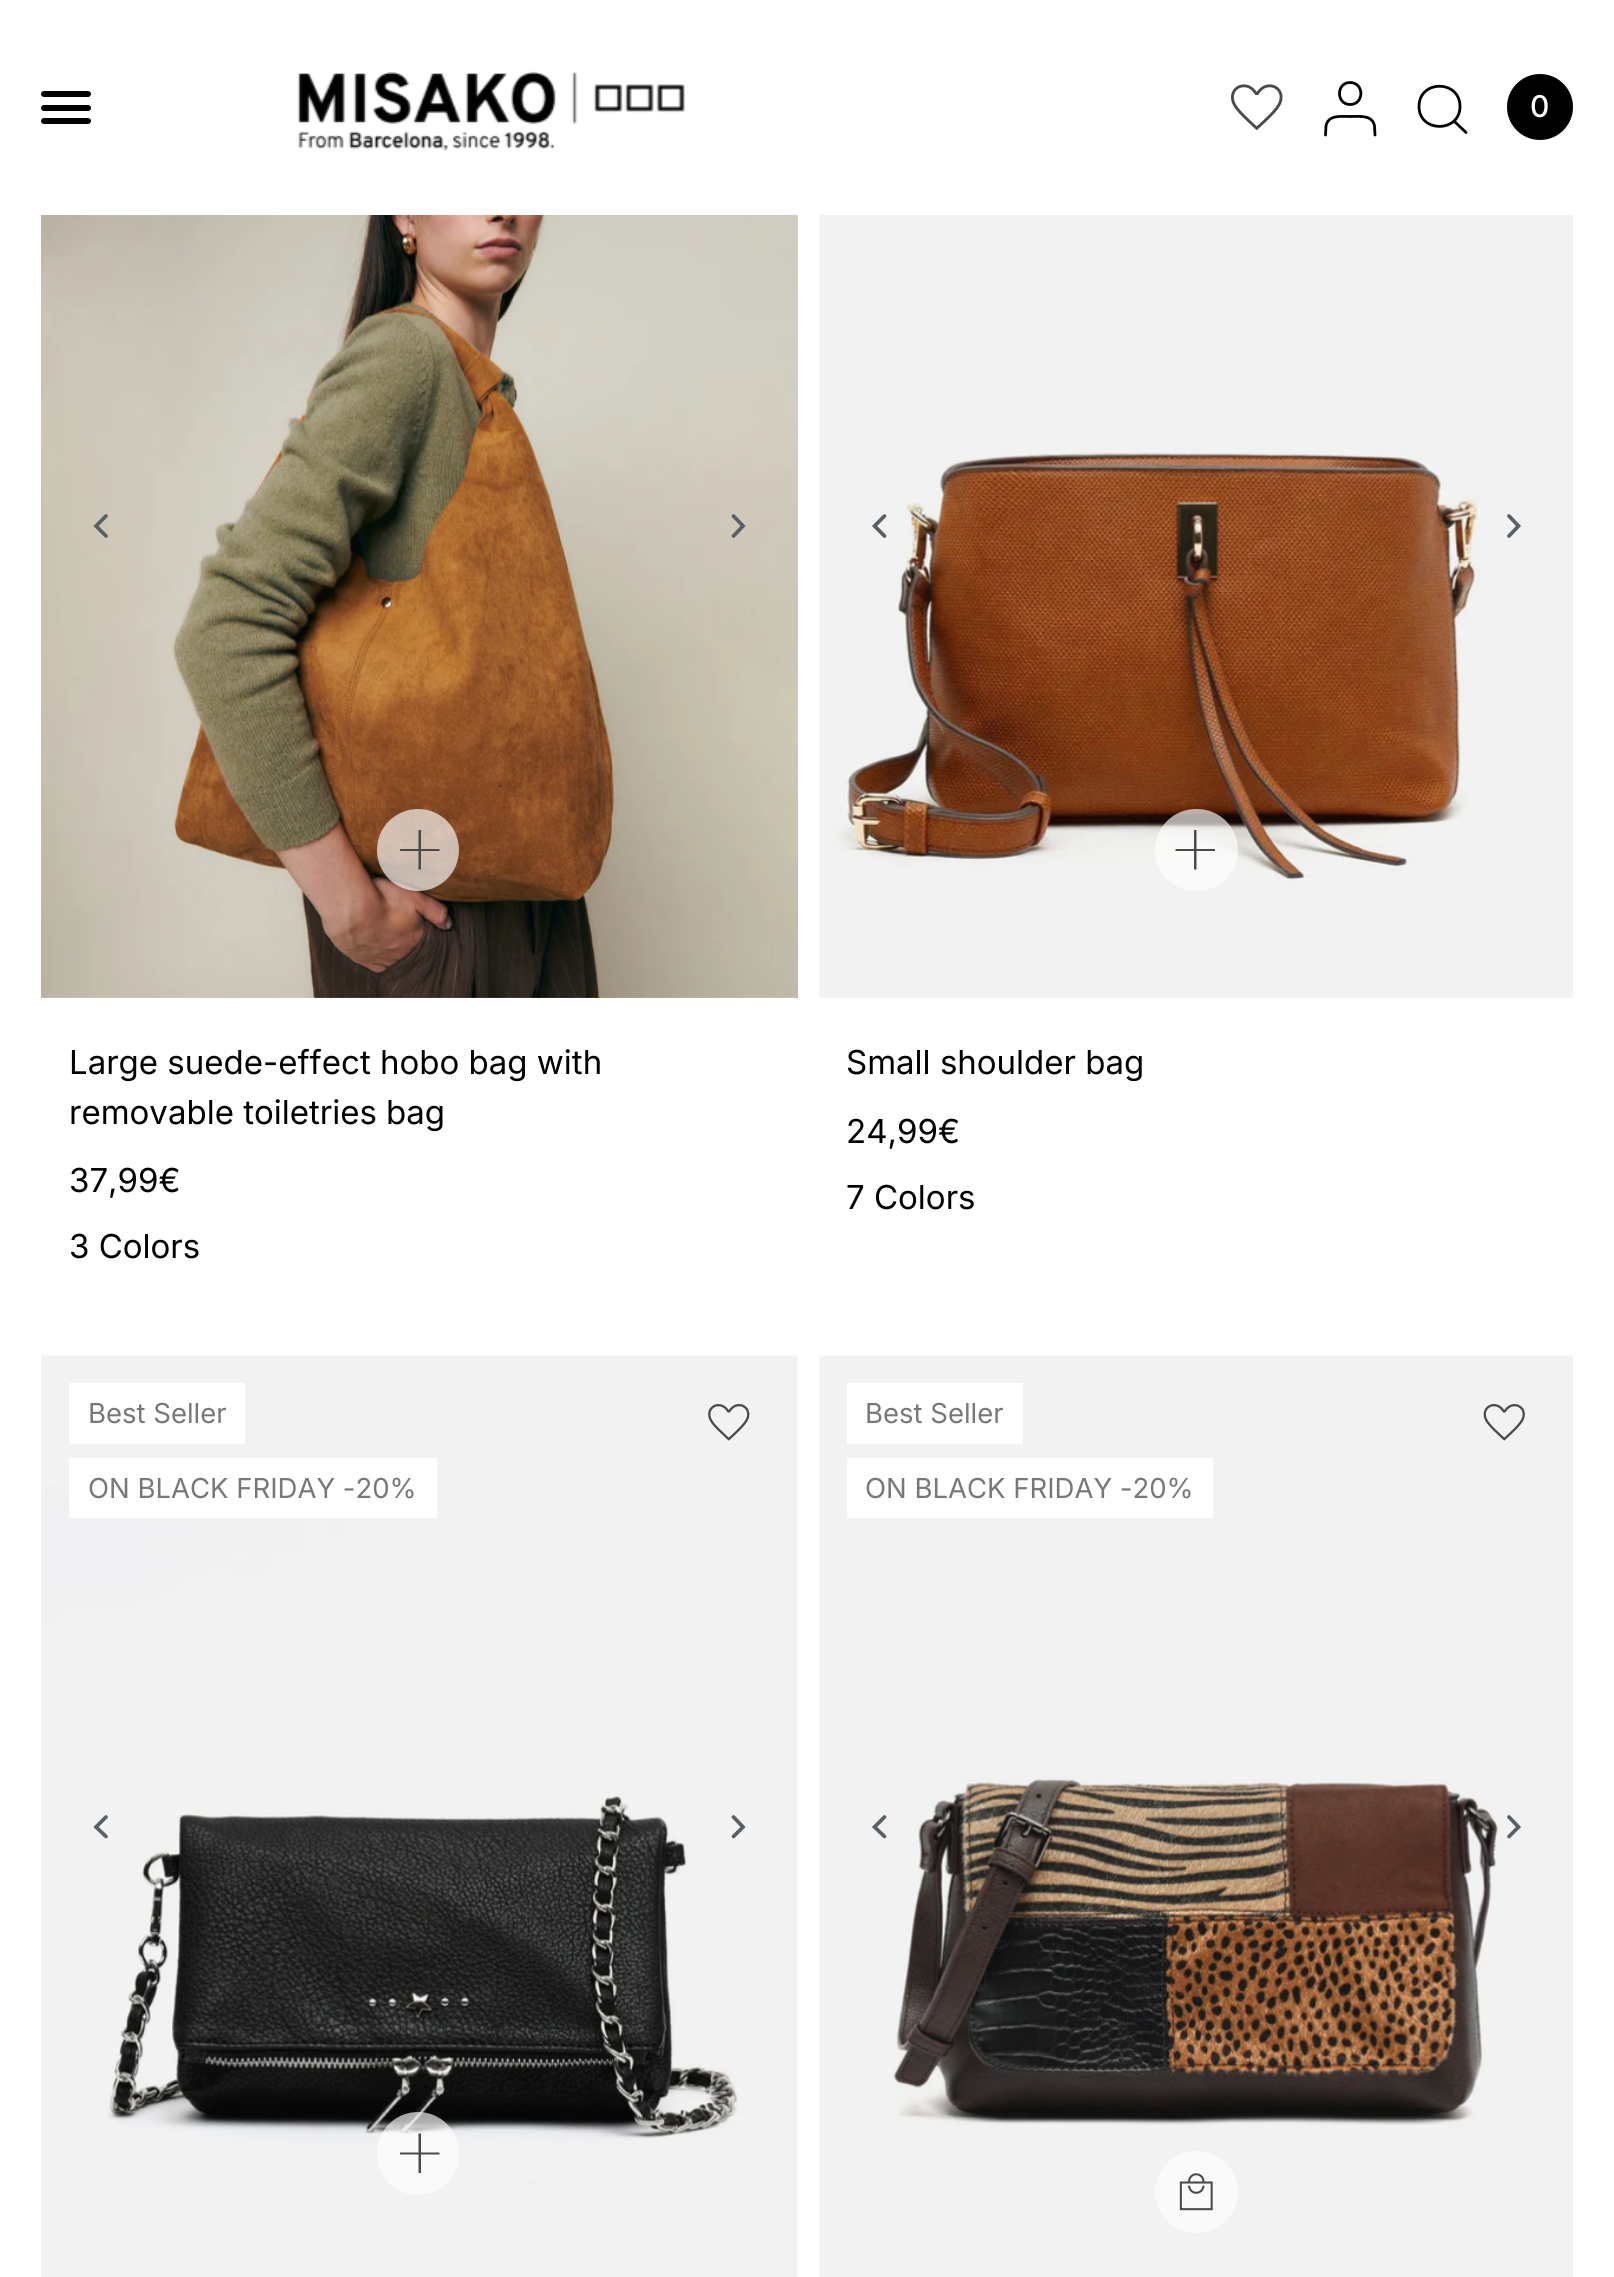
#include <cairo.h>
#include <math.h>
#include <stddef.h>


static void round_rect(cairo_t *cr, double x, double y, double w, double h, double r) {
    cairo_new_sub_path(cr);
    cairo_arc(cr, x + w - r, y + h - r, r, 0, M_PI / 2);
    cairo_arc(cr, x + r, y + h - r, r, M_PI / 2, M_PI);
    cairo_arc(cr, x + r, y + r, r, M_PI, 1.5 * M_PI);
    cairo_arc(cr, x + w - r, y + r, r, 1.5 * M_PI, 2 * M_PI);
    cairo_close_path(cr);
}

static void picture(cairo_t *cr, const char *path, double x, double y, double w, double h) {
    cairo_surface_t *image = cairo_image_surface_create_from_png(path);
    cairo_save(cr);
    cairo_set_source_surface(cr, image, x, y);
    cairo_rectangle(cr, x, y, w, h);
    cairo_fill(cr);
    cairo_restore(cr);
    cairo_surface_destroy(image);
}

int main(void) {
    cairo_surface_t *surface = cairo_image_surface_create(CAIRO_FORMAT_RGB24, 1614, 2277);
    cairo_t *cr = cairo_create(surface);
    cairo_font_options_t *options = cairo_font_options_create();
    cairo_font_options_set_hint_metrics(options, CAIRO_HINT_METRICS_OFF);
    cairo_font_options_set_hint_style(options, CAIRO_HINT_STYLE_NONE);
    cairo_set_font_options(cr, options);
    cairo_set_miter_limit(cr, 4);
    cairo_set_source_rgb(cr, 1, 1, 1);
    cairo_paint(cr);
    cairo_set_source_rgb(cr, 0, 0, 0);
    round_rect(cr, 41, 91, 50, 6, 3);
    cairo_fill(cr);
    round_rect(cr, 41, 105, 50, 6, 3);
    cairo_fill(cr);
    round_rect(cr, 41, 118, 50, 6, 3);
    cairo_fill(cr);
    picture(cr, "img1.png", 297, 71, 388, 80);
    picture(cr, "img2.png", 1231, 84, 52, 47);
    cairo_new_path(cr);
    cairo_move_to(cr, 1375, 135);
    cairo_line_to(cr, 1374.5, 126);
    cairo_curve_to(cr, 1372.5, 114.5, 1359, 116.5, 1350, 116.5);
    cairo_curve_to(cr, 1341.5, 116.5, 1328, 114.5, 1326, 126);
    cairo_line_to(cr, 1325.5, 135);
    cairo_move_to(cr, 1350, 104.5);
    cairo_curve_to(cr, 1364.5, 104.5, 1364.5, 82.5, 1350, 82.5);
    cairo_curve_to(cr, 1336, 82.5, 1336, 104.5, 1350, 104.5);
    cairo_close_path(cr);
    cairo_set_line_width(cr, 2.8);
    cairo_set_line_cap(cr, CAIRO_LINE_CAP_ROUND);
    cairo_set_line_join(cr, CAIRO_LINE_JOIN_ROUND);
    cairo_stroke(cr);
    cairo_new_path(cr);
    cairo_move_to(cr, 1454, 121);
    cairo_line_to(cr, 1466, 132.5);
    cairo_move_to(cr, 1460, 106.5);
    cairo_curve_to(cr, 1460, 133, 1419, 133, 1419, 106.5);
    cairo_curve_to(cr, 1419, 79.5, 1460, 79.5, 1460, 106.5);
    cairo_close_path(cr);
    cairo_stroke(cr);
    cairo_arc(cr, 1540, 107, 33, 0, 2 * M_PI);
    cairo_fill(cr);
    cairo_select_font_face(cr, "Inter Medium", CAIRO_FONT_SLANT_NORMAL, CAIRO_FONT_WEIGHT_NORMAL);
    cairo_set_font_size(cr, 30);
    cairo_set_source_rgb(cr, 1, 1, 1);
    cairo_move_to(cr, 1530, 117);
    cairo_show_text(cr, "0");
    picture(cr, "img3.png", 41, 215, 757, 783);
    cairo_new_path(cr);
    cairo_move_to(cr, 106, 516);
    cairo_line_to(cr, 96, 526);
    cairo_line_to(cr, 106, 536);
    cairo_set_source_rgb(cr, 0.345, 0.376, 0.396);
    cairo_set_line_width(cr, 3.7);
    cairo_set_line_join(cr, CAIRO_LINE_JOIN_MITER);
    cairo_stroke(cr);
    cairo_new_path(cr);
    cairo_move_to(cr, 733.5, 536);
    cairo_line_to(cr, 743, 526);
    cairo_line_to(cr, 733.5, 516);
    cairo_stroke(cr);
    cairo_set_source_rgba(cr, 1, 1, 1, 0.65);
    cairo_arc(cr, 418, 850, 41, 0, 2 * M_PI);
    cairo_fill(cr);
    cairo_set_source_rgb(cr, 0.29, 0.29, 0.286);
    cairo_new_path(cr);
    cairo_move_to(cr, 418.5, 869.5);
    cairo_line_to(cr, 418.5, 830);
    cairo_line_to(cr, 421, 830);
    cairo_line_to(cr, 421, 869.5);
    cairo_close_path(cr);
    cairo_move_to(cr, 400, 851);
    cairo_line_to(cr, 400, 849);
    cairo_line_to(cr, 439.5, 849);
    cairo_line_to(cr, 439.5, 851);
    cairo_close_path(cr);
    cairo_fill(cr);
    cairo_select_font_face(cr, "Inter", CAIRO_FONT_SLANT_NORMAL, CAIRO_FONT_WEIGHT_NORMAL);
    cairo_set_font_size(cr, 33);
    cairo_set_source_rgb(cr, 0, 0, 0);
    cairo_move_to(cr, 69, 1074);
    cairo_show_text(cr, "Large suede-effect hobo bag with");
    cairo_move_to(cr, 69, 1124);
    cairo_show_text(cr, "removable toiletries bag");
    cairo_move_to(cr, 69, 1192);
    cairo_show_text(cr, "37,99€");
    cairo_move_to(cr, 69, 1258);
    cairo_show_text(cr, "3 Colors");
    picture(cr, "img4.png", 819, 215, 754, 783);
    cairo_new_path(cr);
    cairo_move_to(cr, 884.5, 516);
    cairo_line_to(cr, 874.5, 526);
    cairo_line_to(cr, 884.5, 536);
    cairo_set_source_rgb(cr, 0.345, 0.376, 0.396);
    cairo_stroke(cr);
    cairo_new_path(cr);
    cairo_move_to(cr, 1509, 536);
    cairo_line_to(cr, 1518.5, 526);
    cairo_line_to(cr, 1509, 516);
    cairo_stroke(cr);
    cairo_set_source_rgba(cr, 1, 1, 1, 0.65);
    round_rect(cr, 1155, 809, 83, 82, 41);
    cairo_fill(cr);
    cairo_set_source_rgb(cr, 0.29, 0.29, 0.286);
    cairo_new_path(cr);
    cairo_move_to(cr, 1194, 869.5);
    cairo_line_to(cr, 1194, 830);
    cairo_line_to(cr, 1196.5, 830);
    cairo_line_to(cr, 1196.5, 869.5);
    cairo_close_path(cr);
    cairo_move_to(cr, 1175.5, 851);
    cairo_line_to(cr, 1175.5, 849);
    cairo_line_to(cr, 1215, 849);
    cairo_line_to(cr, 1215, 851);
    cairo_close_path(cr);
    cairo_fill(cr);
    cairo_set_source_rgb(cr, 0, 0, 0);
    cairo_move_to(cr, 846, 1074);
    cairo_show_text(cr, "Small shoulder bag");
    cairo_move_to(cr, 846, 1143);
    cairo_show_text(cr, "24,99€");
    cairo_move_to(cr, 846, 1209);
    cairo_show_text(cr, "7 Colors");
    picture(cr, "img5.png", 41, 1355, 757, 922);
    cairo_new_path(cr);
    cairo_move_to(cr, 106, 1817);
    cairo_line_to(cr, 96, 1827);
    cairo_line_to(cr, 106, 1836.5);
    cairo_set_source_rgb(cr, 0.345, 0.376, 0.396);
    cairo_stroke(cr);
    cairo_new_path(cr);
    cairo_move_to(cr, 733.5, 1836.5);
    cairo_line_to(cr, 743, 1827);
    cairo_line_to(cr, 733.5, 1817);
    cairo_stroke(cr);
    cairo_set_source_rgb(cr, 1, 1, 1);
    cairo_rectangle(cr, 69, 1383, 176, 61);
    cairo_fill(cr);
    cairo_set_font_size(cr, 27.5);
    cairo_set_source_rgb(cr, 0.471, 0.471, 0.467);
    cairo_move_to(cr, 88, 1423);
    cairo_show_text(cr, "Best Seller");
    cairo_set_source_rgb(cr, 1, 1, 1);
    cairo_rectangle(cr, 69, 1458, 368, 60);
    cairo_fill(cr);
    cairo_set_source_rgb(cr, 0.471, 0.471, 0.467);
    cairo_move_to(cr, 88, 1498);
    cairo_show_text(cr, "ON BLACK FRIDAY -20%");
    picture(cr, "img6.png", 708, 1404, 42, 37);
    cairo_set_source_rgba(cr, 1, 1, 1, 0.65);
    round_rect(cr, 377, 2112, 82, 83, 41);
    cairo_fill(cr);
    cairo_set_source_rgb(cr, 0.29, 0.29, 0.286);
    cairo_new_path(cr);
    cairo_move_to(cr, 418.5, 2173);
    cairo_line_to(cr, 418.5, 2133.5);
    cairo_line_to(cr, 421, 2133.5);
    cairo_line_to(cr, 421, 2173);
    cairo_close_path(cr);
    cairo_move_to(cr, 400, 2154.5);
    cairo_line_to(cr, 400, 2152.5);
    cairo_line_to(cr, 439.5, 2152.5);
    cairo_line_to(cr, 439.5, 2154.5);
    cairo_close_path(cr);
    cairo_fill(cr);
    picture(cr, "img7.png", 819, 1355, 754, 922);
    cairo_new_path(cr);
    cairo_move_to(cr, 884.5, 1817);
    cairo_line_to(cr, 874.5, 1827);
    cairo_line_to(cr, 884.5, 1836.5);
    cairo_set_source_rgb(cr, 0.345, 0.376, 0.396);
    cairo_stroke(cr);
    cairo_new_path(cr);
    cairo_move_to(cr, 1509, 1836.5);
    cairo_line_to(cr, 1518.5, 1827);
    cairo_line_to(cr, 1509, 1817);
    cairo_stroke(cr);
    cairo_set_source_rgb(cr, 1, 1, 1);
    cairo_rectangle(cr, 847, 1383, 176, 61);
    cairo_fill(cr);
    cairo_set_source_rgb(cr, 0.471, 0.471, 0.467);
    cairo_move_to(cr, 865, 1423);
    cairo_show_text(cr, "Best Seller");
    cairo_set_source_rgb(cr, 1, 1, 1);
    cairo_rectangle(cr, 847, 1458, 366, 60);
    cairo_fill(cr);
    cairo_set_source_rgb(cr, 0.471, 0.471, 0.467);
    cairo_move_to(cr, 865, 1498);
    cairo_show_text(cr, "ON BLACK FRIDAY -20%");
    cairo_set_source_rgb(cr, 0.98, 0.98, 0.98);
    round_rect(cr, 1155, 2151, 83, 82, 41);
    cairo_fill(cr);
    picture(cr, "img8.png", 1179, 2173, 34, 38);
    picture(cr, "img9.png", 1483, 1404, 42, 37);
    cairo_surface_write_to_png(surface, "page.png");
    cairo_font_options_destroy(options);
    cairo_destroy(cr);
    cairo_surface_destroy(surface);
    return 0;
}
